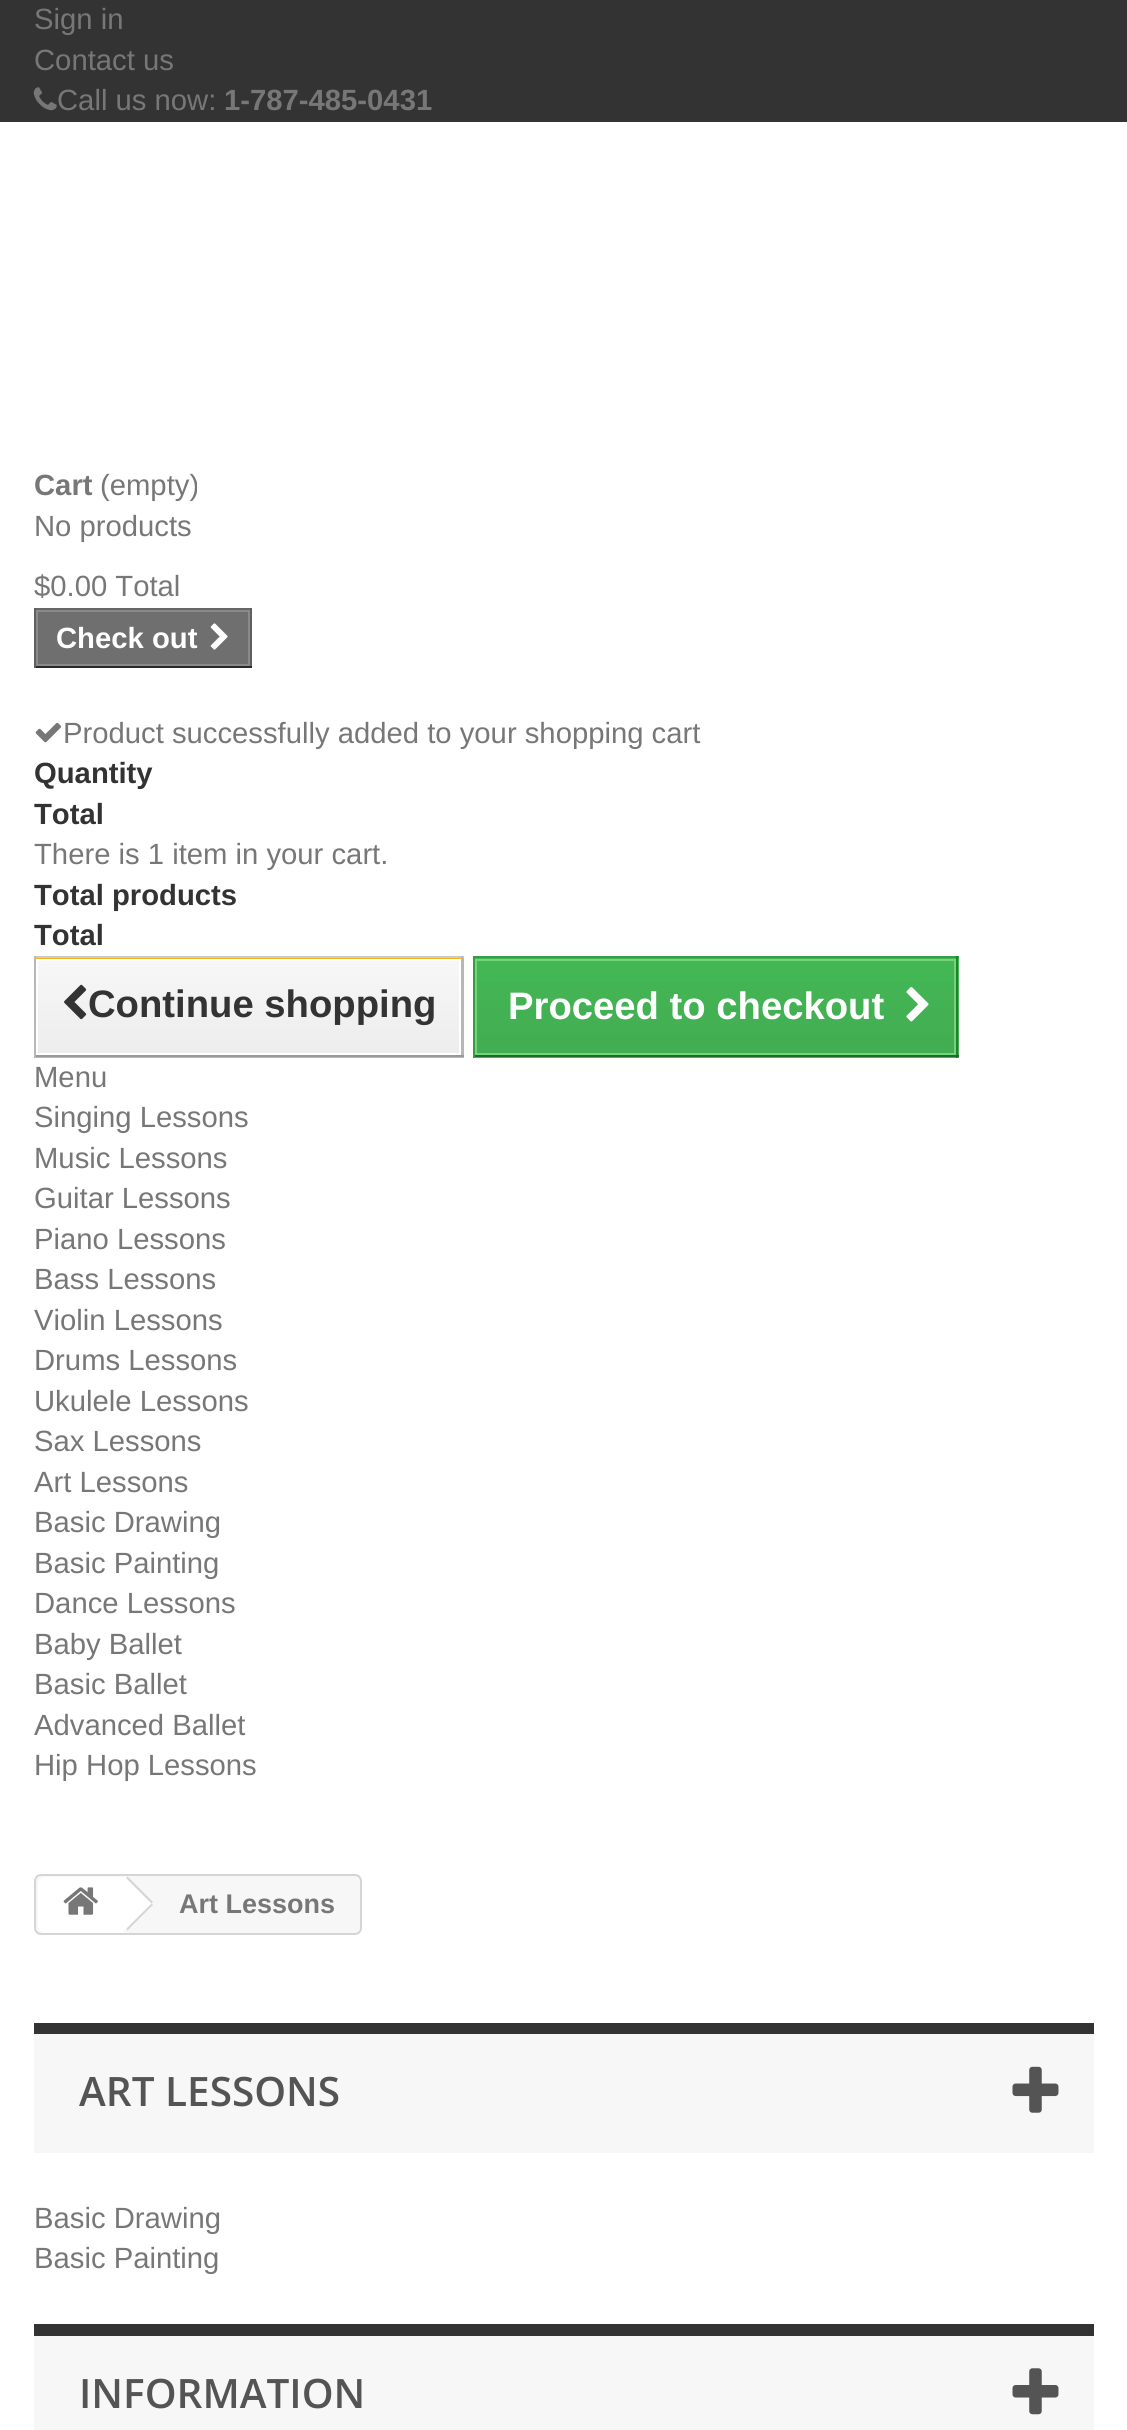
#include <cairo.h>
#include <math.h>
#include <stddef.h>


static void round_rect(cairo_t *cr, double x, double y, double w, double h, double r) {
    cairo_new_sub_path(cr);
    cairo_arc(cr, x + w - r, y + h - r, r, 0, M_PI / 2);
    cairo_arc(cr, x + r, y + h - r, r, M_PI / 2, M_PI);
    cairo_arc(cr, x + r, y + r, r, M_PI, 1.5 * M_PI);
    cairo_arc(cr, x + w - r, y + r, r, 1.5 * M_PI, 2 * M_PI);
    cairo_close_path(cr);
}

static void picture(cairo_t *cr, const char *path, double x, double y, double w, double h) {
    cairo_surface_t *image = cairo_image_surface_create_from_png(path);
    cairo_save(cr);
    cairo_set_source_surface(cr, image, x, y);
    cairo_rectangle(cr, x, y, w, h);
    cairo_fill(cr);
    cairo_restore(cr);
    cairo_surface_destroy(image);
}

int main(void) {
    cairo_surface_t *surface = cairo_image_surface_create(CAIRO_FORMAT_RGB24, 1127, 2430);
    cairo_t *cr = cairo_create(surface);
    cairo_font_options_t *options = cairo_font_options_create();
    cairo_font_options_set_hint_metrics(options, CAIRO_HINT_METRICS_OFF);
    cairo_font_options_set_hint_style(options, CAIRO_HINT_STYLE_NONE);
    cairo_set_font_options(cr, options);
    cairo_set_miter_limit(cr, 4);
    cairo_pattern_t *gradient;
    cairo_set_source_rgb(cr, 1, 1, 1);
    cairo_paint(cr);
    cairo_set_source_rgb(cr, 0.2, 0.2, 0.2);
    cairo_rectangle(cr, 0, 0, 1127, 122);
    cairo_fill(cr);
    cairo_select_font_face(cr, "Liberation Sans", CAIRO_FONT_SLANT_NORMAL, CAIRO_FONT_WEIGHT_NORMAL);
    cairo_set_font_size(cr, 29.25);
    cairo_set_source_rgb(cr, 0.467, 0.467, 0.467);
    cairo_move_to(cr, 34, 29);
    cairo_show_text(cr, "Sign in");
    cairo_move_to(cr, 34, 70);
    cairo_show_text(cr, "Contact us");
    picture(cr, "img1.png", 33, 87, 24, 24);
    cairo_move_to(cr, 57, 110);
    cairo_show_text(cr, "Call us now:");
    cairo_select_font_face(cr, "Liberation Sans", CAIRO_FONT_SLANT_NORMAL, CAIRO_FONT_WEIGHT_BOLD);
    cairo_move_to(cr, 224, 110);
    cairo_show_text(cr, "1-787-485-0431");
    cairo_move_to(cr, 34, 495);
    cairo_show_text(cr, "Cart");
    cairo_select_font_face(cr, "Liberation Sans", CAIRO_FONT_SLANT_NORMAL, CAIRO_FONT_WEIGHT_NORMAL);
    cairo_move_to(cr, 100, 495);
    cairo_show_text(cr, "(empty)");
    cairo_move_to(cr, 34, 536);
    cairo_show_text(cr, "No products");
    cairo_move_to(cr, 34, 596);
    cairo_show_text(cr, "$0.00 Total");
    cairo_set_source_rgb(cr, 0.4, 0.4, 0.4);
    cairo_rectangle(cr, 34, 608, 218, 2);
    cairo_fill(cr);
    cairo_set_source_rgb(cr, 0.373, 0.373, 0.373);
    cairo_rectangle(cr, 250, 608, 2, 60);
    cairo_fill(cr);
    cairo_set_source_rgb(cr, 0.161, 0.161, 0.161);
    cairo_rectangle(cr, 34, 666, 218, 2);
    cairo_fill(cr);
    cairo_set_source_rgb(cr, 0.373, 0.373, 0.373);
    cairo_rectangle(cr, 34, 608, 2, 60);
    cairo_fill(cr);
    cairo_set_source_rgb(cr, 0.435, 0.435, 0.435);
    cairo_rectangle(cr, 37, 611, 212, 54);
    cairo_fill_preserve(cr);
    cairo_set_source_rgb(cr, 0.545, 0.541, 0.541);
    cairo_stroke(cr);
    cairo_select_font_face(cr, "Liberation Sans", CAIRO_FONT_SLANT_NORMAL, CAIRO_FONT_WEIGHT_BOLD);
    cairo_set_source_rgb(cr, 1, 1, 1);
    cairo_move_to(cr, 56, 648);
    cairo_show_text(cr, "Check out");
    picture(cr, "img2.png", 210, 623, 18, 27);
    picture(cr, "img3.png", 35, 722, 26, 21);
    cairo_select_font_face(cr, "Liberation Sans", CAIRO_FONT_SLANT_NORMAL, CAIRO_FONT_WEIGHT_NORMAL);
    cairo_set_source_rgb(cr, 0.467, 0.467, 0.467);
    cairo_move_to(cr, 63, 743);
    cairo_show_text(cr, "Product successfully added to your shopping cart");
    cairo_select_font_face(cr, "Liberation Sans", CAIRO_FONT_SLANT_NORMAL, CAIRO_FONT_WEIGHT_BOLD);
    cairo_set_source_rgb(cr, 0.2, 0.2, 0.2);
    cairo_move_to(cr, 34, 783);
    cairo_show_text(cr, "Quantity");
    cairo_move_to(cr, 34, 824);
    cairo_show_text(cr, "Total");
    cairo_select_font_face(cr, "Liberation Sans", CAIRO_FONT_SLANT_NORMAL, CAIRO_FONT_WEIGHT_NORMAL);
    cairo_set_source_rgb(cr, 0.467, 0.467, 0.467);
    cairo_move_to(cr, 34, 864);
    cairo_show_text(cr, "There is 1 item in your cart.");
    cairo_select_font_face(cr, "Liberation Sans", CAIRO_FONT_SLANT_NORMAL, CAIRO_FONT_WEIGHT_BOLD);
    cairo_set_source_rgb(cr, 0.2, 0.2, 0.2);
    cairo_move_to(cr, 34, 905);
    cairo_show_text(cr, "Total products");
    cairo_move_to(cr, 34, 945);
    cairo_show_text(cr, "Total");
    cairo_set_source_rgb(cr, 0.957, 0.714, 0.106);
    cairo_rectangle(cr, 36, 958, 428, 100);
    cairo_fill(cr);
    cairo_set_source_rgb(cr, 0.792, 0.792, 0.792);
    cairo_rectangle(cr, 34, 956, 430, 2);
    cairo_fill(cr);
    cairo_set_source_rgb(cr, 0.718, 0.718, 0.718);
    cairo_rectangle(cr, 461, 956, 2, 102);
    cairo_fill(cr);
    cairo_set_source_rgb(cr, 0.604, 0.604, 0.604);
    cairo_rectangle(cr, 34, 1055, 430, 2);
    cairo_fill(cr);
    cairo_set_source_rgb(cr, 0.718, 0.718, 0.718);
    cairo_rectangle(cr, 34, 956, 2, 102);
    cairo_fill(cr);
    gradient = cairo_pattern_create_linear(249, 961, 249, 1053);
    cairo_pattern_add_color_stop_rgba(gradient, 0, 0.969, 0.969, 0.969, 1);
    cairo_pattern_add_color_stop_rgba(gradient, 1, 0.929, 0.929, 0.929, 1);
    cairo_set_source(cr, gradient);
    cairo_pattern_destroy(gradient);
    cairo_rectangle(cr, 38, 961, 421, 92);
    cairo_fill(cr);
    cairo_rectangle(cr, 37, 960, 423, 94);
    cairo_set_source_rgb(cr, 1, 1, 1);
    cairo_stroke(cr);
    picture(cr, "img4.png", 64, 984, 23, 36);
    cairo_set_font_size(cr, 38.25);
    cairo_set_source_rgb(cr, 0.2, 0.2, 0.2);
    cairo_move_to(cr, 88, 1017);
    cairo_show_text(cr, "Continue shopping");
    cairo_set_source_rgb(cr, 0.263, 0.718, 0.329);
    cairo_rectangle(cr, 475, 958, 484, 100);
    cairo_fill(cr);
    gradient = cairo_pattern_create_linear(716, 959, 716, 1055);
    cairo_pattern_add_color_stop_rgba(gradient, 0, 0.263, 0.718, 0.329, 1);
    cairo_pattern_add_color_stop_rgba(gradient, 1, 0.259, 0.675, 0.322, 1);
    cairo_set_source(cr, gradient);
    cairo_pattern_destroy(gradient);
    cairo_rectangle(cr, 477, 981, 482, 74);
    cairo_fill(cr);
    cairo_set_source_rgb(cr, 0.224, 0.604, 0.286);
    cairo_rectangle(cr, 473, 956, 486, 2);
    cairo_fill(cr);
    cairo_set_source_rgb(cr, 0.141, 0.498, 0.196);
    cairo_rectangle(cr, 956, 956, 2, 102);
    cairo_fill(cr);
    cairo_set_source_rgb(cr, 0.102, 0.427, 0.153);
    cairo_rectangle(cr, 473, 1055, 486, 2);
    cairo_fill(cr);
    cairo_set_source_rgb(cr, 0.224, 0.604, 0.286);
    cairo_rectangle(cr, 473, 956, 2, 102);
    cairo_fill(cr);
    cairo_rectangle(cr, 476, 960, 479, 94);
    cairo_set_source_rgb(cr, 0.455, 0.835, 0.471);
    cairo_stroke(cr);
    cairo_set_source_rgb(cr, 1, 1, 1);
    cairo_move_to(cr, 508, 1019);
    cairo_show_text(cr, "Proceed to checkout");
    picture(cr, "img5.png", 906, 987, 23, 35);
    cairo_select_font_face(cr, "Liberation Sans", CAIRO_FONT_SLANT_NORMAL, CAIRO_FONT_WEIGHT_NORMAL);
    cairo_set_font_size(cr, 29.25);
    cairo_set_source_rgb(cr, 0.467, 0.467, 0.467);
    cairo_move_to(cr, 34, 1087);
    cairo_show_text(cr, "Menu");
    cairo_move_to(cr, 34, 1127);
    cairo_show_text(cr, "Singing Lessons");
    cairo_move_to(cr, 34, 1168);
    cairo_show_text(cr, "Music Lessons");
    cairo_move_to(cr, 34, 1208);
    cairo_show_text(cr, "Guitar Lessons");
    cairo_move_to(cr, 34, 1249);
    cairo_show_text(cr, "Piano Lessons");
    cairo_move_to(cr, 34, 1289);
    cairo_show_text(cr, "Bass Lessons");
    cairo_move_to(cr, 34, 1330);
    cairo_show_text(cr, "Violin Lessons");
    cairo_move_to(cr, 34, 1370);
    cairo_show_text(cr, "Drums Lessons");
    cairo_move_to(cr, 34, 1411);
    cairo_show_text(cr, "Ukulele Lessons");
    cairo_move_to(cr, 34, 1451);
    cairo_show_text(cr, "Sax Lessons");
    cairo_move_to(cr, 34, 1492);
    cairo_show_text(cr, "Art Lessons");
    cairo_move_to(cr, 34, 1532);
    cairo_show_text(cr, "Basic Drawing");
    cairo_move_to(cr, 34, 1573);
    cairo_show_text(cr, "Basic Painting");
    cairo_move_to(cr, 34, 1613);
    cairo_show_text(cr, "Dance Lessons");
    cairo_move_to(cr, 34, 1654);
    cairo_show_text(cr, "Baby Ballet");
    cairo_move_to(cr, 34, 1694);
    cairo_show_text(cr, "Basic Ballet");
    cairo_move_to(cr, 34, 1735);
    cairo_show_text(cr, "Advanced Ballet");
    cairo_move_to(cr, 34, 1775);
    cairo_show_text(cr, "Hip Hop Lessons");
    cairo_set_source_rgb(cr, 0.965, 0.965, 0.965);
    round_rect(cr, 35, 1875, 326, 59, 6);
    cairo_fill_preserve(cr);
    cairo_set_source_rgb(cr, 0.839, 0.831, 0.831);
    cairo_stroke(cr);
    cairo_set_source_rgb(cr, 1, 1, 1);
    cairo_new_path(cr);
    cairo_move_to(cr, 45, 1877);
    cairo_line_to(cr, 124, 1877);
    cairo_line_to(cr, 124, 1933);
    cairo_line_to(cr, 45, 1933);
    cairo_curve_to(cr, 41, 1933, 38, 1930, 38, 1926);
    cairo_line_to(cr, 38, 1884);
    cairo_curve_to(cr, 38, 1880, 41, 1877, 45, 1877);
    cairo_close_path(cr);
    cairo_fill(cr);
    picture(cr, "img6.png", 63, 1887, 35, 28);
    cairo_new_path(cr);
    cairo_move_to(cr, 129, 1878);
    cairo_line_to(cr, 128, 1877);
    cairo_line_to(cr, 124, 1877);
    cairo_line_to(cr, 100, 1901);
    cairo_curve_to(cr, 98, 1905, 102, 1908, 105, 1911);
    cairo_line_to(cr, 119, 1925);
    cairo_curve_to(cr, 126, 1932, 126, 1932, 133, 1925);
    cairo_line_to(cr, 147, 1911);
    cairo_curve_to(cr, 150, 1908, 155, 1904, 151, 1900);
    cairo_close_path(cr);
    cairo_fill(cr);
    cairo_set_source_rgb(cr, 0.839, 0.831, 0.831);
    cairo_new_path(cr);
    cairo_move_to(cr, 127.5, 1876.5);
    cairo_line_to(cr, 153, 1902);
    cairo_line_to(cr, 151.5, 1903.5);
    cairo_line_to(cr, 126, 1878);
    cairo_close_path(cr);
    cairo_fill(cr);
    cairo_new_path(cr);
    cairo_move_to(cr, 151.5, 1903.5);
    cairo_line_to(cr, 153, 1905);
    cairo_line_to(cr, 127.5, 1930.5);
    cairo_line_to(cr, 126, 1929);
    cairo_close_path(cr);
    cairo_fill(cr);
    cairo_select_font_face(cr, "Liberation Sans", CAIRO_FONT_SLANT_NORMAL, CAIRO_FONT_WEIGHT_BOLD);
    cairo_set_font_size(cr, 27);
    cairo_set_source_rgb(cr, 0.467, 0.467, 0.467);
    cairo_move_to(cr, 179, 1913);
    cairo_show_text(cr, "Art Lessons");
    cairo_set_source_rgb(cr, 0.965, 0.965, 0.965);
    cairo_rectangle(cr, 34, 2034, 1060, 119);
    cairo_fill(cr);
    cairo_set_source_rgb(cr, 0.2, 0.2, 0.2);
    cairo_rectangle(cr, 34, 2023, 1060, 11);
    cairo_fill(cr);
    cairo_select_font_face(cr, "Open Sans SemiBold", CAIRO_FONT_SLANT_NORMAL, CAIRO_FONT_WEIGHT_NORMAL);
    cairo_set_font_size(cr, 40.5);
    cairo_set_source_rgb(cr, 0.333, 0.329, 0.329);
    cairo_move_to(cr, 79, 2106);
    cairo_show_text(cr, "ART LESSONS");
    picture(cr, "img7.png", 1012, 2066, 47, 47);
    cairo_select_font_face(cr, "Liberation Sans", CAIRO_FONT_SLANT_NORMAL, CAIRO_FONT_WEIGHT_NORMAL);
    cairo_set_font_size(cr, 29.25);
    cairo_set_source_rgb(cr, 0.467, 0.467, 0.467);
    cairo_move_to(cr, 34, 2228);
    cairo_show_text(cr, "Basic Drawing");
    cairo_move_to(cr, 34, 2268);
    cairo_show_text(cr, "Basic Painting");
    cairo_set_source_rgb(cr, 0.965, 0.965, 0.965);
    cairo_rectangle(cr, 34, 2336, 1060, 94);
    cairo_fill(cr);
    cairo_set_source_rgb(cr, 0.2, 0.2, 0.2);
    cairo_rectangle(cr, 34, 2324, 1060, 12);
    cairo_fill(cr);
    cairo_select_font_face(cr, "Open Sans SemiBold", CAIRO_FONT_SLANT_NORMAL, CAIRO_FONT_WEIGHT_NORMAL);
    cairo_set_font_size(cr, 40.5);
    cairo_set_source_rgb(cr, 0.333, 0.329, 0.329);
    cairo_move_to(cr, 79, 2408);
    cairo_show_text(cr, "INFORMATION");
    picture(cr, "img8.png", 1012, 2368, 47, 47);
    cairo_surface_write_to_png(surface, "page.png");
    cairo_font_options_destroy(options);
    cairo_destroy(cr);
    cairo_surface_destroy(surface);
    return 0;
}
